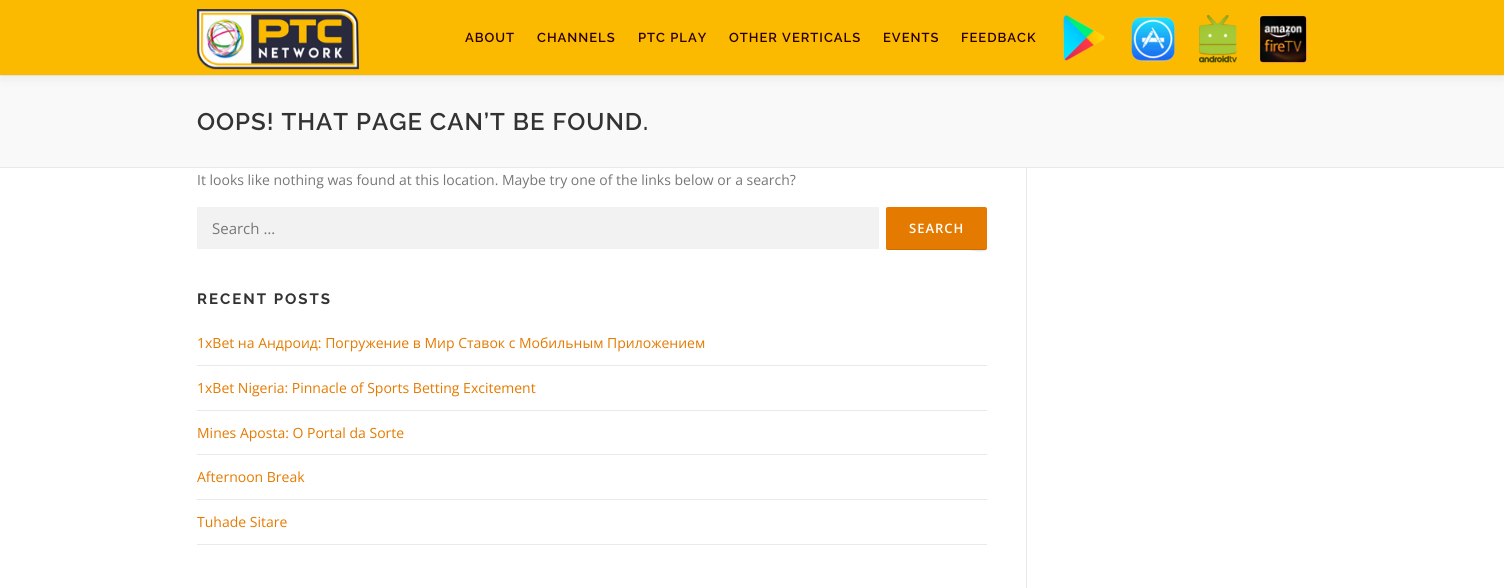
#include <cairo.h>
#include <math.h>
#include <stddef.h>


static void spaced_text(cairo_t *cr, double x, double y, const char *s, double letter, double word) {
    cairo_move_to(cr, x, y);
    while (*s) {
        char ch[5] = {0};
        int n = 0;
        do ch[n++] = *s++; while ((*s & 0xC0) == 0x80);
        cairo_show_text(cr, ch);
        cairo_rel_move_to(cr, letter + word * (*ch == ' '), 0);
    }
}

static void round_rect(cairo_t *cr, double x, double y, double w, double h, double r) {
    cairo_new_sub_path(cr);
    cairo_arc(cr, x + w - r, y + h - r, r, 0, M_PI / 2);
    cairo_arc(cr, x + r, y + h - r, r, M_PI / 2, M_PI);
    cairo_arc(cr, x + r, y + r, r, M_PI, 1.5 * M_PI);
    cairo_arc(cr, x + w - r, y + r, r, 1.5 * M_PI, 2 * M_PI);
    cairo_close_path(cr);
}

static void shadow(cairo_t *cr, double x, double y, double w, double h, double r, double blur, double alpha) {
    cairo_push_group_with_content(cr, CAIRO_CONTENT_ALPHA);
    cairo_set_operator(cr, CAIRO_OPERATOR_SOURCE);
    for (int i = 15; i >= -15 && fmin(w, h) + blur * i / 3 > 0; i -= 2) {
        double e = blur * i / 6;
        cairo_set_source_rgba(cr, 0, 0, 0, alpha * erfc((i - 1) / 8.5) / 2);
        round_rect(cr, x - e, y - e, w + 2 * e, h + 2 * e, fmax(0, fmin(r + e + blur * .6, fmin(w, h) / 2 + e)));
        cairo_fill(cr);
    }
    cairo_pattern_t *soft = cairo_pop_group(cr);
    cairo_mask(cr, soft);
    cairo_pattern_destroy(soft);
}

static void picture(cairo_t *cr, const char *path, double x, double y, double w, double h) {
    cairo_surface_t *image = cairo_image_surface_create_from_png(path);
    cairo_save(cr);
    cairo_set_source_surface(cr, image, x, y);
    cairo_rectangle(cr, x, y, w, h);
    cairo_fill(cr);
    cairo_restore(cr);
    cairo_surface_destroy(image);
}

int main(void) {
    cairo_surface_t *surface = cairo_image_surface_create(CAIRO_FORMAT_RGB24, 1504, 588);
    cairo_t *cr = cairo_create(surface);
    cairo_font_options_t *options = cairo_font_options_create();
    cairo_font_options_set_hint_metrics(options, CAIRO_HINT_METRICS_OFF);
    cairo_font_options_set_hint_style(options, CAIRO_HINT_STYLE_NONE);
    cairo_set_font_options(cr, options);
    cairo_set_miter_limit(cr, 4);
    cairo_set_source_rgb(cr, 1, 1, 1);
    cairo_paint(cr);
    cairo_set_source_rgb(cr, 0.973, 0.976, 0.976);
    cairo_rectangle(cr, 0, 76, 1504, 91);
    cairo_fill(cr);
    cairo_set_source_rgb(cr, 0.914, 0.914, 0.914);
    cairo_rectangle(cr, 0, 75, 1504, 1);
    cairo_fill(cr);
    cairo_set_source_rgb(cr, 0.196, 0.196, 0.196);
    shadow(cr, 0, 5, 1504, 75, 0, 5, 0.06);
    cairo_set_source_rgb(cr, 0.984, 0.729, 0);
    cairo_rectangle(cr, 0, 0, 1504, 75);
    cairo_fill(cr);
    picture(cr, "img1.png", 197, 9, 162, 61);
    cairo_select_font_face(cr, "Raleway SemiBold", CAIRO_FONT_SLANT_NORMAL, CAIRO_FONT_WEIGHT_NORMAL);
    cairo_set_font_size(cr, 13);
    cairo_set_source_rgb(cr, 0.169, 0, 0);
    spaced_text(cr, 465, 42, "ABOUT", 1, 0);
    spaced_text(cr, 537, 42, "CHANNELS", 1, 0);
    spaced_text(cr, 638, 42, "PTC PLAY", 1, 0);
    spaced_text(cr, 729, 42, "OTHER VERTICALS", 1, 0);
    spaced_text(cr, 883, 42, "EVENTS", 1, 0);
    spaced_text(cr, 961, 42, "FEEDBACK", 1, 0);
    picture(cr, "img2.png", 1063, 15, 42, 46);
    picture(cr, "img3.png", 1131, 16, 45, 46);
    picture(cr, "img4.png", 1199, 15, 38, 48);
    picture(cr, "img5.png", 1259, 15, 48, 48);
    cairo_set_source_rgb(cr, 0.914, 0.914, 0.914);
    cairo_rectangle(cr, 0, 167, 1504, 1);
    cairo_fill(cr);
    cairo_set_font_size(cr, 24);
    cairo_set_source_rgb(cr, 0.2, 0.2, 0.2);
    spaced_text(cr, 197, 130, "OOPS! THAT PAGE CAN’T BE FOUND.", 1, 0);
    cairo_set_source_rgb(cr, 0.914, 0.914, 0.914);
    cairo_rectangle(cr, 1026, 168, 1, 420);
    cairo_fill(cr);
    cairo_select_font_face(cr, "Open Sans", CAIRO_FONT_SLANT_NORMAL, CAIRO_FONT_WEIGHT_NORMAL);
    cairo_set_font_size(cr, 14);
    cairo_set_source_rgb(cr, 0.467, 0.467, 0.467);
    cairo_move_to(cr, 197, 185);
    cairo_show_text(cr, "It looks like nothing was found at this location. Maybe try one of the links below or a search?");
    cairo_set_source_rgb(cr, 0.949, 0.949, 0.949);
    cairo_rectangle(cr, 197, 207, 682, 42);
    cairo_fill(cr);
    cairo_set_font_size(cr, 15);
    cairo_set_source_rgb(cr, 0.467, 0.467, 0.467);
    cairo_move_to(cr, 212, 234);
    cairo_show_text(cr, "Search …");
    cairo_set_source_rgb(cr, 0.898, 0.478, 0);
    round_rect(cr, 886, 207, 101, 43, 2);
    cairo_fill(cr);
    cairo_set_source_rgba(cr, 0, 0, 0, 0.1);
    cairo_new_path(cr);
    cairo_move_to(cr, 886, 247);
    cairo_curve_to(cr, 886, 248, 886, 250, 888, 250);
    cairo_line_to(cr, 969, 250);
    cairo_curve_to(cr, 970, 250, 987, 255, 987, 247);
    cairo_curve_to(cr, 987, 248, 986, 249, 985, 249);
    cairo_line_to(cr, 888, 249);
    cairo_curve_to(cr, 887, 249, 886, 248, 886, 247);
    cairo_close_path(cr);
    cairo_fill(cr);
    cairo_select_font_face(cr, "Open Sans SemiBold", CAIRO_FONT_SLANT_NORMAL, CAIRO_FONT_WEIGHT_NORMAL);
    cairo_set_font_size(cr, 13);
    cairo_set_source_rgb(cr, 1, 1, 1);
    spaced_text(cr, 909, 233, "SEARCH", 1, 0);
    cairo_select_font_face(cr, "Raleway", CAIRO_FONT_SLANT_NORMAL, CAIRO_FONT_WEIGHT_BOLD);
    cairo_set_font_size(cr, 15);
    cairo_set_source_rgb(cr, 0.2, 0.2, 0.2);
    spaced_text(cr, 197, 304, "RECENT POSTS", 2, 0);
    cairo_set_source_rgb(cr, 0.914, 0.914, 0.914);
    cairo_rectangle(cr, 197, 365, 790, 1);
    cairo_fill(cr);
    cairo_select_font_face(cr, "Open Sans", CAIRO_FONT_SLANT_NORMAL, CAIRO_FONT_WEIGHT_NORMAL);
    cairo_set_font_size(cr, 14);
    cairo_set_source_rgb(cr, 0.898, 0.478, 0);
    cairo_move_to(cr, 197, 348);
    cairo_show_text(cr, "1xBet на Андроид: Погружение в Мир Ставок с Мобильным Приложением");
    cairo_set_source_rgb(cr, 0.914, 0.914, 0.914);
    cairo_rectangle(cr, 197, 410, 790, 1);
    cairo_fill(cr);
    cairo_set_source_rgb(cr, 0.898, 0.478, 0);
    cairo_move_to(cr, 197, 393);
    cairo_show_text(cr, "1xBet Nigeria: Pinnacle of Sports Betting Excitement");
    cairo_set_source_rgb(cr, 0.914, 0.914, 0.914);
    cairo_rectangle(cr, 197, 454, 790, 1);
    cairo_fill(cr);
    cairo_set_source_rgb(cr, 0.898, 0.478, 0);
    cairo_move_to(cr, 197, 438);
    cairo_show_text(cr, "Mines Aposta: O Portal da Sorte");
    cairo_set_source_rgb(cr, 0.914, 0.914, 0.914);
    cairo_rectangle(cr, 197, 499, 790, 1);
    cairo_fill(cr);
    cairo_set_source_rgb(cr, 0.898, 0.478, 0);
    cairo_move_to(cr, 197, 482);
    cairo_show_text(cr, "Afternoon Break");
    cairo_set_source_rgb(cr, 0.914, 0.914, 0.914);
    cairo_rectangle(cr, 197, 544, 790, 1);
    cairo_fill(cr);
    cairo_set_source_rgb(cr, 0.898, 0.478, 0);
    cairo_move_to(cr, 197, 527);
    cairo_show_text(cr, "Tuhade Sitare");
    cairo_surface_write_to_png(surface, "page.png");
    cairo_font_options_destroy(options);
    cairo_destroy(cr);
    cairo_surface_destroy(surface);
    return 0;
}
